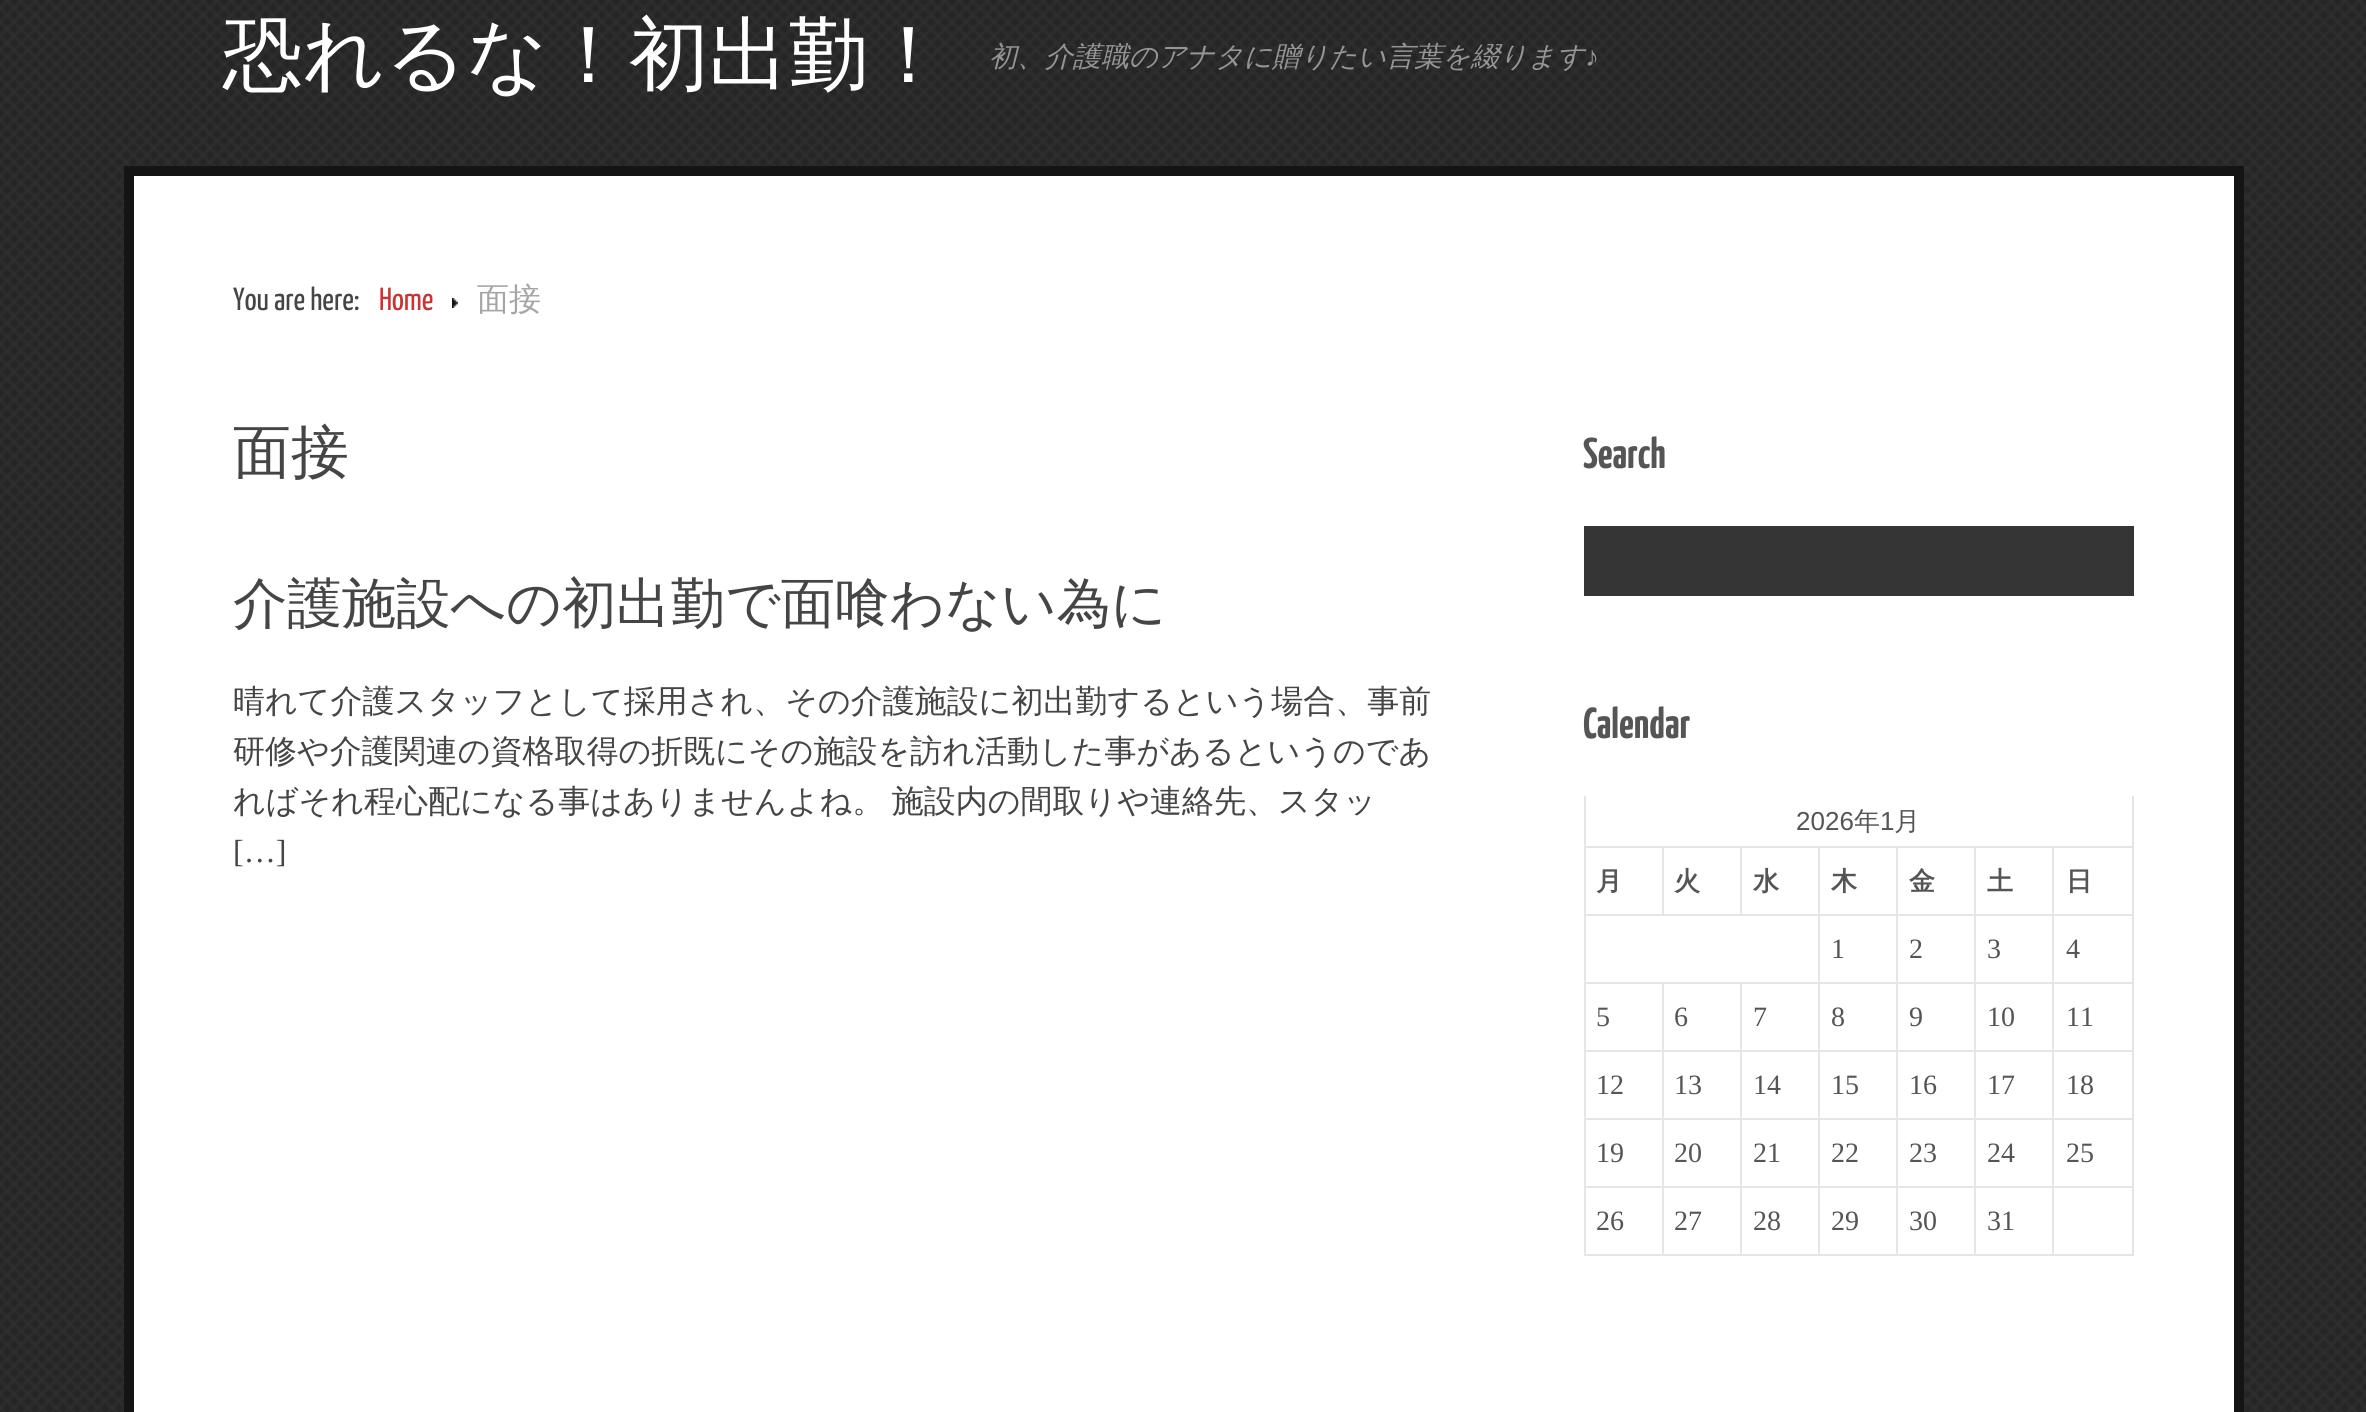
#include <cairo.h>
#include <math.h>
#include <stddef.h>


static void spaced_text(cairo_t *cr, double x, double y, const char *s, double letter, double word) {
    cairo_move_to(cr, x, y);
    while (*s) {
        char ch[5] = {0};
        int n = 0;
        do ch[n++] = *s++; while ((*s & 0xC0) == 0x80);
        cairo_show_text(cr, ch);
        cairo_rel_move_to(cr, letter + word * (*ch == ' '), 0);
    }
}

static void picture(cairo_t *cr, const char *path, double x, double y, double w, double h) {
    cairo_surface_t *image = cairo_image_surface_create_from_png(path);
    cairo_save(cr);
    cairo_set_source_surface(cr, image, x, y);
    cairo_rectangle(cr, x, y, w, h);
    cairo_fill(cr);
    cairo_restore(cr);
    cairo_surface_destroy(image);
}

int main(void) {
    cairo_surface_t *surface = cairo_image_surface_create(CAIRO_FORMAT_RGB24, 2366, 1412);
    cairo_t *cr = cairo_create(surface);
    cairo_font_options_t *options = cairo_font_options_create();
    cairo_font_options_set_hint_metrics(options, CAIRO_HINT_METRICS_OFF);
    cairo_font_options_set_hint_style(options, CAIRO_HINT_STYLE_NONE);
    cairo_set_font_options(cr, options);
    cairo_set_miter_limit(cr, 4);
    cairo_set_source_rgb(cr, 1, 1, 1);
    cairo_paint(cr);
    picture(cr, "img1.png", 0, 0, 2366, 1412);
    cairo_select_font_face(cr, "WenQuanYi Zen Hei Medium", CAIRO_FONT_SLANT_NORMAL, CAIRO_FONT_WEIGHT_NORMAL);
    cairo_set_font_size(cr, 80);
    cairo_set_source_rgb(cr, 1, 1, 1);
    cairo_move_to(cr, 223, 82);
    cairo_show_text(cr, "恐れるな！初出勤！");
    cairo_select_font_face(cr, "WenQuanYi Zen Hei Medium", CAIRO_FONT_SLANT_ITALIC, CAIRO_FONT_WEIGHT_NORMAL);
    cairo_set_font_size(cr, 28);
    cairo_set_source_rgb(cr, 0.584, 0.584, 0.584);
    cairo_move_to(cr, 989, 66);
    cairo_show_text(cr, "初、介護職のアナタに贈りたい言葉を綴ります");
    cairo_select_font_face(cr, "Liberation Serif", CAIRO_FONT_SLANT_ITALIC, CAIRO_FONT_WEIGHT_NORMAL);
    cairo_move_to(cr, 1585, 66);
    cairo_show_text(cr, "♪");
    cairo_set_source_rgb(cr, 1, 1, 1);
    cairo_rectangle(cr, 129, 171, 2110, 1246);
    cairo_fill_preserve(cr);
    cairo_set_source_rgb(cr, 0.082, 0.082, 0.082);
    cairo_set_line_width(cr, 10);
    cairo_stroke(cr);
    cairo_select_font_face(cr, "Yanone Kaffeesatz", CAIRO_FONT_SLANT_NORMAL, CAIRO_FONT_WEIGHT_NORMAL);
    cairo_set_font_size(cr, 32);
    cairo_set_source_rgb(cr, 0.271, 0.271, 0.271);
    cairo_move_to(cr, 233, 310);
    cairo_show_text(cr, "You are here:");
    cairo_set_source_rgb(cr, 0.8, 0.2, 0.2);
    cairo_move_to(cr, 379, 310);
    cairo_show_text(cr, "Home");
    picture(cr, "img2.png", 452, 298, 6, 10);
    cairo_select_font_face(cr, "WenQuanYi Zen Hei Medium", CAIRO_FONT_SLANT_NORMAL, CAIRO_FONT_WEIGHT_NORMAL);
    cairo_set_source_rgb(cr, 0.647, 0.647, 0.647);
    cairo_move_to(cr, 477, 310);
    cairo_show_text(cr, "面接");
    cairo_set_font_size(cr, 58);
    cairo_set_source_rgb(cr, 0.271, 0.271, 0.271);
    cairo_move_to(cr, 233, 472);
    cairo_show_text(cr, "面接");
    cairo_set_font_size(cr, 54.4);
    cairo_move_to(cr, 233, 622);
    cairo_show_text(cr, "介護施設への初出勤で面喰わない為に");
    cairo_set_font_size(cr, 32);
    cairo_move_to(cr, 233, 712);
    cairo_show_text(cr, "晴れて介護スタッフとして採用され、その介護施設に初出勤するという場合、事前");
    cairo_move_to(cr, 233, 762);
    cairo_show_text(cr, "研修や介護関連の資格取得の折既にその施設を訪れ活動した事があるというのであ");
    spaced_text(cr, 233, 812, "ればそれ程心配になる事はありませんよね。 施設内の間取りや連絡先、スタッ", 0, -2);
    cairo_select_font_face(cr, "Liberation Serif", CAIRO_FONT_SLANT_NORMAL, CAIRO_FONT_WEIGHT_NORMAL);
    cairo_move_to(cr, 233, 862);
    cairo_show_text(cr, "[…]");
    cairo_select_font_face(cr, "Yanone Kaffeesatz", CAIRO_FONT_SLANT_NORMAL, CAIRO_FONT_WEIGHT_BOLD);
    cairo_set_font_size(cr, 43);
    cairo_set_source_rgb(cr, 0.333, 0.333, 0.333);
    cairo_move_to(cr, 1583, 468);
    cairo_show_text(cr, "Search");
    cairo_set_source_rgb(cr, 0.208, 0.208, 0.208);
    cairo_rectangle(cr, 1584, 526, 550, 70);
    cairo_fill(cr);
    cairo_set_source_rgb(cr, 0.333, 0.333, 0.333);
    cairo_move_to(cr, 1583, 738);
    cairo_show_text(cr, "Calendar");
    cairo_set_source_rgb(cr, 0.898, 0.898, 0.898);
    cairo_rectangle(cr, 2132, 796, 2, 460);
    cairo_fill(cr);
    cairo_rectangle(cr, 1584, 796, 2, 460);
    cairo_fill(cr);
    cairo_select_font_face(cr, "Liberation Sans", CAIRO_FONT_SLANT_NORMAL, CAIRO_FONT_WEIGHT_NORMAL);
    cairo_set_font_size(cr, 26);
    cairo_set_source_rgb(cr, 0.333, 0.333, 0.333);
    cairo_move_to(cr, 1796, 830);
    cairo_show_text(cr, "2026");
    cairo_select_font_face(cr, "WenQuanYi Zen Hei Medium", CAIRO_FONT_SLANT_NORMAL, CAIRO_FONT_WEIGHT_NORMAL);
    cairo_move_to(cr, 1854, 830);
    cairo_show_text(cr, "年");
    cairo_select_font_face(cr, "Liberation Sans", CAIRO_FONT_SLANT_NORMAL, CAIRO_FONT_WEIGHT_NORMAL);
    cairo_move_to(cr, 1880, 830);
    cairo_show_text(cr, "1");
    cairo_select_font_face(cr, "WenQuanYi Zen Hei Medium", CAIRO_FONT_SLANT_NORMAL, CAIRO_FONT_WEIGHT_NORMAL);
    cairo_move_to(cr, 1894, 830);
    cairo_show_text(cr, "月");
    cairo_set_source_rgb(cr, 0.898, 0.898, 0.898);
    cairo_rectangle(cr, 1584, 846, 550, 2);
    cairo_fill(cr);
    cairo_rectangle(cr, 2052, 1254, 82, 2);
    cairo_fill(cr);
    cairo_rectangle(cr, 2052, 1186, 2, 70);
    cairo_fill(cr);
    cairo_rectangle(cr, 2052, 1186, 82, 2);
    cairo_fill(cr);
    cairo_rectangle(cr, 2052, 1118, 2, 70);
    cairo_fill(cr);
    cairo_rectangle(cr, 2052, 1118, 82, 2);
    cairo_fill(cr);
    cairo_rectangle(cr, 2052, 1050, 2, 70);
    cairo_fill(cr);
    cairo_rectangle(cr, 2052, 1050, 82, 2);
    cairo_fill(cr);
    cairo_rectangle(cr, 2052, 982, 2, 70);
    cairo_fill(cr);
    cairo_rectangle(cr, 2052, 982, 82, 2);
    cairo_fill(cr);
    cairo_rectangle(cr, 2052, 914, 2, 70);
    cairo_fill(cr);
    cairo_rectangle(cr, 2052, 914, 82, 2);
    cairo_fill(cr);
    cairo_rectangle(cr, 2052, 846, 2, 70);
    cairo_fill(cr);
    cairo_rectangle(cr, 1974, 1254, 80, 2);
    cairo_fill(cr);
    cairo_rectangle(cr, 1974, 1186, 2, 70);
    cairo_fill(cr);
    cairo_rectangle(cr, 1974, 1186, 80, 2);
    cairo_fill(cr);
    cairo_rectangle(cr, 1974, 1118, 2, 70);
    cairo_fill(cr);
    cairo_rectangle(cr, 1974, 1118, 80, 2);
    cairo_fill(cr);
    cairo_rectangle(cr, 1974, 1050, 2, 70);
    cairo_fill(cr);
    cairo_rectangle(cr, 1974, 1050, 80, 2);
    cairo_fill(cr);
    cairo_rectangle(cr, 1974, 982, 2, 70);
    cairo_fill(cr);
    cairo_rectangle(cr, 1974, 982, 80, 2);
    cairo_fill(cr);
    cairo_rectangle(cr, 1974, 914, 2, 70);
    cairo_fill(cr);
    cairo_rectangle(cr, 1974, 914, 80, 2);
    cairo_fill(cr);
    cairo_rectangle(cr, 1974, 846, 2, 70);
    cairo_fill(cr);
    cairo_rectangle(cr, 1896, 1254, 80, 2);
    cairo_fill(cr);
    cairo_rectangle(cr, 1896, 1186, 2, 70);
    cairo_fill(cr);
    cairo_rectangle(cr, 1896, 1186, 80, 2);
    cairo_fill(cr);
    cairo_rectangle(cr, 1896, 1118, 2, 70);
    cairo_fill(cr);
    cairo_rectangle(cr, 1896, 1118, 80, 2);
    cairo_fill(cr);
    cairo_rectangle(cr, 1896, 1050, 2, 70);
    cairo_fill(cr);
    cairo_rectangle(cr, 1896, 1050, 80, 2);
    cairo_fill(cr);
    cairo_rectangle(cr, 1896, 982, 2, 70);
    cairo_fill(cr);
    cairo_rectangle(cr, 1896, 982, 80, 2);
    cairo_fill(cr);
    cairo_rectangle(cr, 1896, 914, 2, 70);
    cairo_fill(cr);
    cairo_rectangle(cr, 1896, 914, 80, 2);
    cairo_fill(cr);
    cairo_rectangle(cr, 1896, 846, 2, 70);
    cairo_fill(cr);
    cairo_rectangle(cr, 1818, 1254, 80, 2);
    cairo_fill(cr);
    cairo_rectangle(cr, 1818, 1186, 2, 70);
    cairo_fill(cr);
    cairo_rectangle(cr, 1818, 1186, 80, 2);
    cairo_fill(cr);
    cairo_rectangle(cr, 1818, 1118, 2, 70);
    cairo_fill(cr);
    cairo_rectangle(cr, 1818, 1118, 80, 2);
    cairo_fill(cr);
    cairo_rectangle(cr, 1818, 1050, 2, 70);
    cairo_fill(cr);
    cairo_rectangle(cr, 1818, 1050, 80, 2);
    cairo_fill(cr);
    cairo_rectangle(cr, 1818, 982, 2, 70);
    cairo_fill(cr);
    cairo_rectangle(cr, 1818, 982, 80, 2);
    cairo_fill(cr);
    cairo_rectangle(cr, 1818, 914, 2, 70);
    cairo_fill(cr);
    cairo_rectangle(cr, 1818, 914, 80, 2);
    cairo_fill(cr);
    cairo_rectangle(cr, 1818, 846, 2, 70);
    cairo_fill(cr);
    cairo_rectangle(cr, 1740, 914, 80, 2);
    cairo_fill(cr);
    cairo_rectangle(cr, 1740, 846, 2, 70);
    cairo_fill(cr);
    cairo_rectangle(cr, 1662, 914, 80, 2);
    cairo_fill(cr);
    cairo_rectangle(cr, 1662, 846, 2, 70);
    cairo_fill(cr);
    cairo_rectangle(cr, 1584, 914, 80, 2);
    cairo_fill(cr);
    cairo_select_font_face(cr, "WenQuanYi Zen Hei", CAIRO_FONT_SLANT_NORMAL, CAIRO_FONT_WEIGHT_BOLD);
    cairo_set_source_rgb(cr, 0.333, 0.333, 0.333);
    cairo_move_to(cr, 1596, 890);
    cairo_show_text(cr, "月");
    cairo_move_to(cr, 1674, 890);
    cairo_show_text(cr, "火");
    cairo_move_to(cr, 1753, 890);
    cairo_show_text(cr, "水");
    cairo_move_to(cr, 1831, 890);
    cairo_show_text(cr, "木");
    cairo_move_to(cr, 1909, 890);
    cairo_show_text(cr, "金");
    cairo_move_to(cr, 1987, 890);
    cairo_show_text(cr, "土");
    cairo_move_to(cr, 2066, 890);
    cairo_show_text(cr, "日");
    cairo_set_source_rgb(cr, 0.898, 0.898, 0.898);
    cairo_rectangle(cr, 1740, 1254, 80, 2);
    cairo_fill(cr);
    cairo_rectangle(cr, 1740, 1186, 2, 70);
    cairo_fill(cr);
    cairo_rectangle(cr, 1740, 1186, 80, 2);
    cairo_fill(cr);
    cairo_rectangle(cr, 1740, 1118, 2, 70);
    cairo_fill(cr);
    cairo_rectangle(cr, 1740, 1118, 80, 2);
    cairo_fill(cr);
    cairo_rectangle(cr, 1740, 1050, 2, 70);
    cairo_fill(cr);
    cairo_rectangle(cr, 1740, 1050, 80, 2);
    cairo_fill(cr);
    cairo_rectangle(cr, 1740, 982, 2, 70);
    cairo_fill(cr);
    cairo_rectangle(cr, 1662, 1254, 80, 2);
    cairo_fill(cr);
    cairo_rectangle(cr, 1662, 1186, 2, 70);
    cairo_fill(cr);
    cairo_rectangle(cr, 1662, 1186, 80, 2);
    cairo_fill(cr);
    cairo_rectangle(cr, 1662, 1118, 2, 70);
    cairo_fill(cr);
    cairo_rectangle(cr, 1662, 1118, 80, 2);
    cairo_fill(cr);
    cairo_rectangle(cr, 1662, 1050, 2, 70);
    cairo_fill(cr);
    cairo_rectangle(cr, 1662, 1050, 80, 2);
    cairo_fill(cr);
    cairo_rectangle(cr, 1662, 982, 2, 70);
    cairo_fill(cr);
    cairo_rectangle(cr, 1584, 982, 236, 2);
    cairo_fill(cr);
    cairo_select_font_face(cr, "Liberation Serif", CAIRO_FONT_SLANT_NORMAL, CAIRO_FONT_WEIGHT_NORMAL);
    cairo_set_font_size(cr, 28);
    cairo_set_source_rgb(cr, 0.333, 0.333, 0.333);
    cairo_move_to(cr, 1831, 958);
    cairo_show_text(cr, "1");
    cairo_move_to(cr, 1909, 958);
    cairo_show_text(cr, "2");
    cairo_move_to(cr, 1987, 958);
    cairo_show_text(cr, "3");
    cairo_move_to(cr, 2066, 958);
    cairo_show_text(cr, "4");
    cairo_set_source_rgb(cr, 0.898, 0.898, 0.898);
    cairo_rectangle(cr, 1584, 1050, 80, 2);
    cairo_fill(cr);
    cairo_set_source_rgb(cr, 0.333, 0.333, 0.333);
    cairo_move_to(cr, 1596, 1026);
    cairo_show_text(cr, "5");
    cairo_move_to(cr, 1674, 1026);
    cairo_show_text(cr, "6");
    cairo_move_to(cr, 1753, 1026);
    cairo_show_text(cr, "7");
    cairo_move_to(cr, 1831, 1026);
    cairo_show_text(cr, "8");
    cairo_move_to(cr, 1909, 1026);
    cairo_show_text(cr, "9");
    cairo_move_to(cr, 1987, 1026);
    cairo_show_text(cr, "10");
    cairo_move_to(cr, 2066, 1026);
    cairo_show_text(cr, "11");
    cairo_set_source_rgb(cr, 0.898, 0.898, 0.898);
    cairo_rectangle(cr, 1584, 1118, 80, 2);
    cairo_fill(cr);
    cairo_set_source_rgb(cr, 0.333, 0.333, 0.333);
    cairo_move_to(cr, 1596, 1094);
    cairo_show_text(cr, "12");
    cairo_move_to(cr, 1674, 1094);
    cairo_show_text(cr, "13");
    cairo_move_to(cr, 1753, 1094);
    cairo_show_text(cr, "14");
    cairo_move_to(cr, 1831, 1094);
    cairo_show_text(cr, "15");
    cairo_move_to(cr, 1909, 1094);
    cairo_show_text(cr, "16");
    cairo_move_to(cr, 1987, 1094);
    cairo_show_text(cr, "17");
    cairo_move_to(cr, 2066, 1094);
    cairo_show_text(cr, "18");
    cairo_set_source_rgb(cr, 0.898, 0.898, 0.898);
    cairo_rectangle(cr, 1584, 1186, 80, 2);
    cairo_fill(cr);
    cairo_set_source_rgb(cr, 0.333, 0.333, 0.333);
    cairo_move_to(cr, 1596, 1162);
    cairo_show_text(cr, "19");
    cairo_move_to(cr, 1674, 1162);
    cairo_show_text(cr, "20");
    cairo_move_to(cr, 1753, 1162);
    cairo_show_text(cr, "21");
    cairo_move_to(cr, 1831, 1162);
    cairo_show_text(cr, "22");
    cairo_move_to(cr, 1909, 1162);
    cairo_show_text(cr, "23");
    cairo_move_to(cr, 1987, 1162);
    cairo_show_text(cr, "24");
    cairo_move_to(cr, 2066, 1162);
    cairo_show_text(cr, "25");
    cairo_set_source_rgb(cr, 0.898, 0.898, 0.898);
    cairo_rectangle(cr, 1584, 1254, 80, 2);
    cairo_fill(cr);
    cairo_set_source_rgb(cr, 0.333, 0.333, 0.333);
    cairo_move_to(cr, 1596, 1230);
    cairo_show_text(cr, "26");
    cairo_move_to(cr, 1674, 1230);
    cairo_show_text(cr, "27");
    cairo_move_to(cr, 1753, 1230);
    cairo_show_text(cr, "28");
    cairo_move_to(cr, 1831, 1230);
    cairo_show_text(cr, "29");
    cairo_move_to(cr, 1909, 1230);
    cairo_show_text(cr, "30");
    cairo_move_to(cr, 1987, 1230);
    cairo_show_text(cr, "31");
    cairo_surface_write_to_png(surface, "page.png");
    cairo_font_options_destroy(options);
    cairo_destroy(cr);
    cairo_surface_destroy(surface);
    return 0;
}
